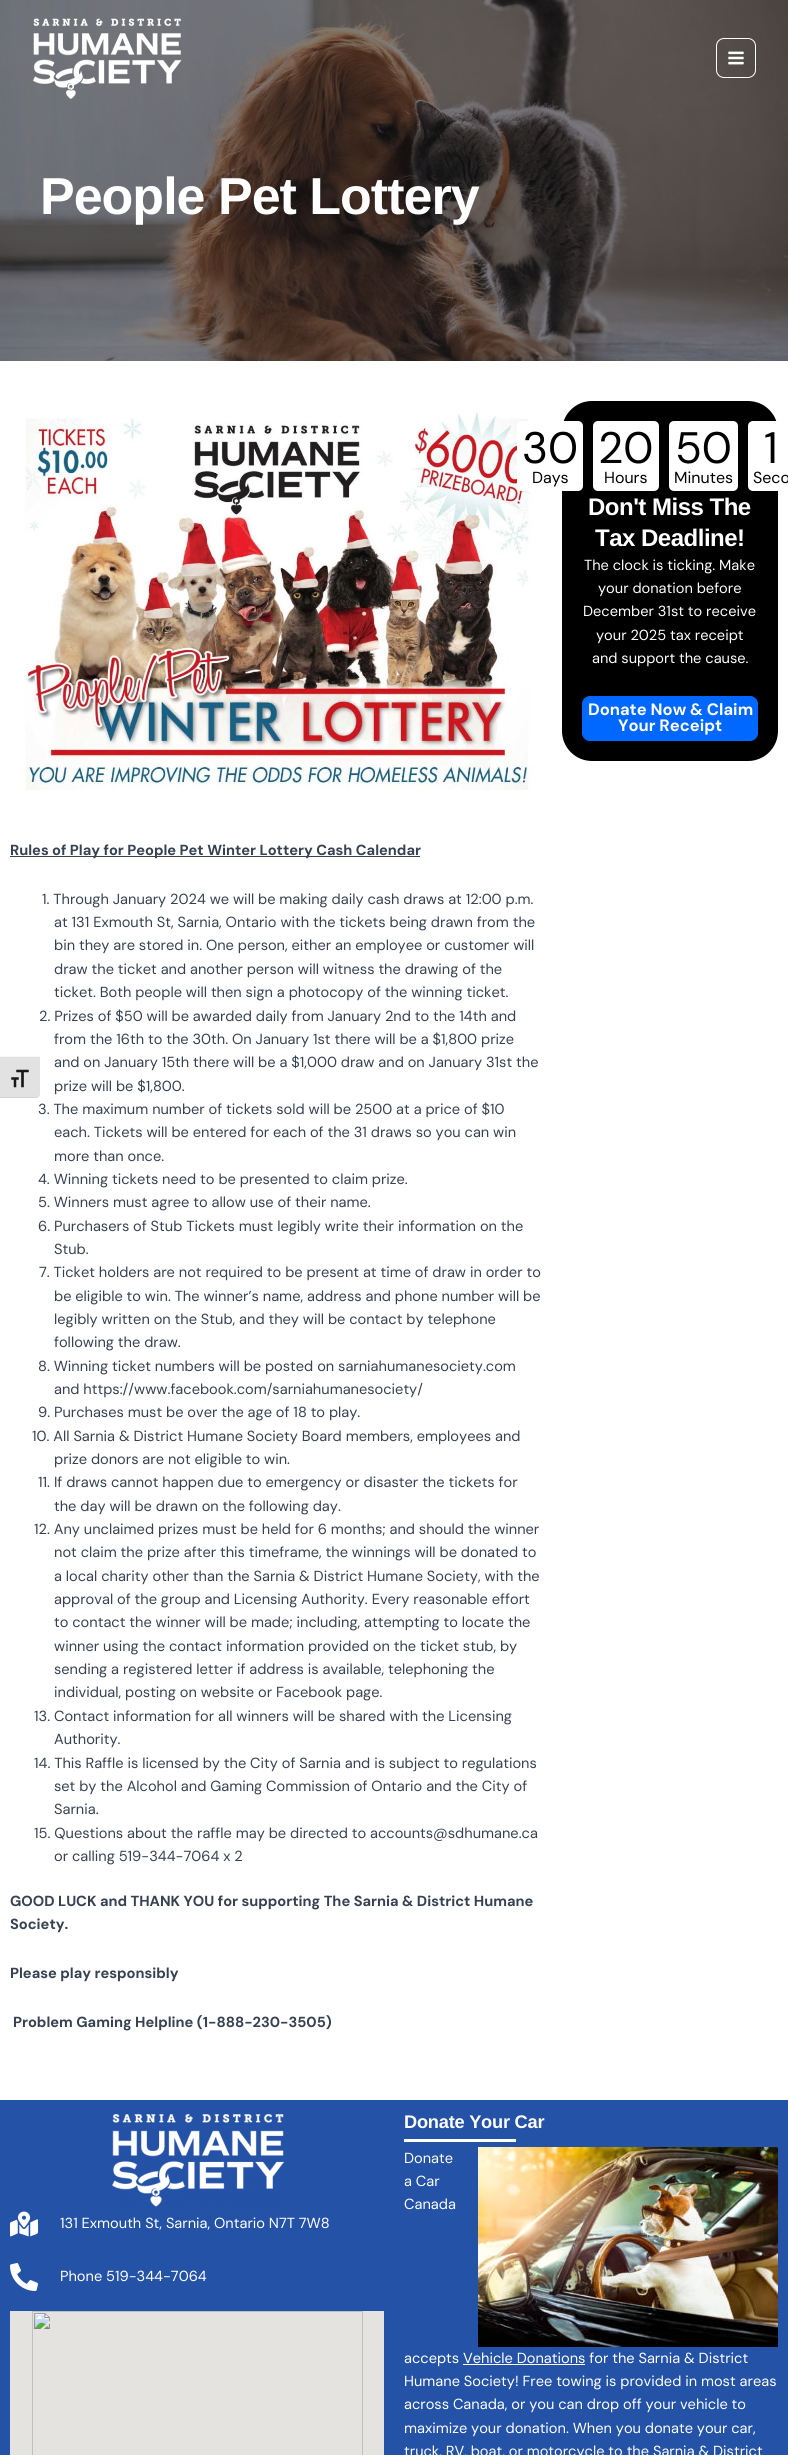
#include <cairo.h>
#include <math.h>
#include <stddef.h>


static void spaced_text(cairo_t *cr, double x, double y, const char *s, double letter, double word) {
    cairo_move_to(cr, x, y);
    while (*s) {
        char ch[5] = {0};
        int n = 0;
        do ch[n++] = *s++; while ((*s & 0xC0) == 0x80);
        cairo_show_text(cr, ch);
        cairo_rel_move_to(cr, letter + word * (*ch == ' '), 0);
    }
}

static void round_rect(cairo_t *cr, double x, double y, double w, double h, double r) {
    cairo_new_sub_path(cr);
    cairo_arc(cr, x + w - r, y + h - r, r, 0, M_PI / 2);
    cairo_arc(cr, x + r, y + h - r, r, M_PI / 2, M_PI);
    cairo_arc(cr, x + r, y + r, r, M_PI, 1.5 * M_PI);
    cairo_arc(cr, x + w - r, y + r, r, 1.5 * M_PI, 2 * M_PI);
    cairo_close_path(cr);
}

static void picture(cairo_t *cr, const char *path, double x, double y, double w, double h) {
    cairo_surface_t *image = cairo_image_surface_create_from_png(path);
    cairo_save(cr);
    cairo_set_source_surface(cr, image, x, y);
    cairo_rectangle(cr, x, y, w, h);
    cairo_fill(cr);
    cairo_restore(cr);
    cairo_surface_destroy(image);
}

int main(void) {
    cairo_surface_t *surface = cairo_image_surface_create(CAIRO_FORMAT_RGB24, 788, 2455);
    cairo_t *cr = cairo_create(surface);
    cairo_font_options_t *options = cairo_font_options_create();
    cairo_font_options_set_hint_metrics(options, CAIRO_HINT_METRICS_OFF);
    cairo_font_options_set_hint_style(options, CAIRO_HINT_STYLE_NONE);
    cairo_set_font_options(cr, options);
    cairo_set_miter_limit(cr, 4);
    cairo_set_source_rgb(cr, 1, 1, 1);
    cairo_paint(cr);
    picture(cr, "img3.png", 0, 0, 788, 361);
    picture(cr, "img1.png", 33, 18, 149, 81);
    round_rect(cr, 716.5, 38.5, 39, 39, 7.5);
    cairo_set_source_rgb(cr, 1, 1, 1);
    cairo_set_line_width(cr, 1);
    cairo_stroke(cr);
    picture(cr, "img2.png", 728, 51, 16, 14);
    cairo_select_font_face(cr, "Liberation Sans", CAIRO_FONT_SLANT_NORMAL, CAIRO_FONT_WEIGHT_BOLD);
    cairo_set_font_size(cr, 52);
    spaced_text(cr, 40, 214, "People Pet Lottery", -1, 0);
    cairo_set_source_rgb(cr, 0, 0, 0);
    round_rect(cr, 562, 401, 216, 360, 30);
    cairo_fill(cr);
    picture(cr, "img4.png", 24, 412, 510, 378);
    cairo_set_source_rgb(cr, 1, 1, 1);
    round_rect(cr, 517, 421, 66, 70, 5);
    cairo_fill(cr);
    cairo_select_font_face(cr, "DM Sans", CAIRO_FONT_SLANT_NORMAL, CAIRO_FONT_WEIGHT_NORMAL);
    cairo_set_font_size(cr, 44);
    cairo_set_source_rgb(cr, 0, 0, 0);
    cairo_move_to(cr, 522, 463);
    cairo_show_text(cr, "30");
    cairo_set_font_size(cr, 16);
    cairo_move_to(cr, 532, 483);
    cairo_show_text(cr, "Days");
    cairo_set_source_rgb(cr, 1, 1, 1);
    round_rect(cr, 593, 421, 66, 70, 5);
    cairo_fill(cr);
    cairo_set_font_size(cr, 44);
    cairo_set_source_rgb(cr, 0, 0, 0);
    cairo_move_to(cr, 598, 463);
    cairo_show_text(cr, "20");
    cairo_set_font_size(cr, 16);
    cairo_move_to(cr, 604, 483);
    cairo_show_text(cr, "Hours");
    cairo_set_source_rgb(cr, 1, 1, 1);
    round_rect(cr, 669, 421, 69, 70, 5);
    cairo_fill(cr);
    cairo_set_font_size(cr, 44);
    cairo_set_source_rgb(cr, 0, 0, 0);
    cairo_move_to(cr, 675, 463);
    cairo_show_text(cr, "50");
    cairo_set_font_size(cr, 16);
    cairo_move_to(cr, 674, 483);
    cairo_show_text(cr, "Minutes");
    cairo_set_source_rgb(cr, 1, 1, 1);
    round_rect(cr, 748, 421, 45, 70, 5);
    cairo_fill(cr);
    cairo_set_font_size(cr, 44);
    cairo_set_source_rgb(cr, 0, 0, 0);
    cairo_move_to(cr, 764, 463);
    cairo_show_text(cr, "1");
    cairo_set_font_size(cr, 16);
    cairo_move_to(cr, 753, 483);
    cairo_show_text(cr, "Seco");
    cairo_select_font_face(cr, "Liberation Sans", CAIRO_FONT_SLANT_NORMAL, CAIRO_FONT_WEIGHT_BOLD);
    cairo_set_font_size(cr, 24);
    cairo_set_source_rgb(cr, 1, 1, 1);
    spaced_text(cr, 588, 515, "Don't Miss The", -0.5, 0);
    spaced_text(cr, 595, 546, "Tax Deadline!", -0.5, 0);
    cairo_select_font_face(cr, "DM Sans", CAIRO_FONT_SLANT_NORMAL, CAIRO_FONT_WEIGHT_NORMAL);
    cairo_set_font_size(cr, 14.6);
    cairo_move_to(cr, 584, 570);
    cairo_show_text(cr, "The clock is ticking. Make");
    cairo_move_to(cr, 598, 593);
    cairo_show_text(cr, "your donation before");
    cairo_move_to(cr, 583, 616);
    cairo_show_text(cr, "December 31st to receive");
    cairo_move_to(cr, 596, 640);
    cairo_show_text(cr, "your 2025 tax receipt");
    cairo_move_to(cr, 592, 663);
    cairo_show_text(cr, "and support the cause.");
    cairo_set_source_rgb(cr, 0, 0.404, 1);
    round_rect(cr, 582.5, 696.5, 175, 44, 7.5);
    cairo_fill_preserve(cr);
    cairo_stroke(cr);
    cairo_select_font_face(cr, "DM Sans", CAIRO_FONT_SLANT_NORMAL, CAIRO_FONT_WEIGHT_BOLD);
    cairo_set_font_size(cr, 16.5);
    cairo_set_source_rgb(cr, 1, 1, 1);
    cairo_move_to(cr, 588, 715);
    cairo_show_text(cr, "Donate Now & Claim");
    cairo_move_to(cr, 618, 731);
    cairo_show_text(cr, "Your Receipt");
    cairo_set_source_rgb(cr, 0.212, 0.255, 0.318);
    cairo_rectangle(cr, 10, 856, 410, 1);
    cairo_fill(cr);
    cairo_set_font_size(cr, 14.6);
    cairo_move_to(cr, 10, 855);
    cairo_show_text(cr, "Rules of Play for People Pet Winter Lottery Cash Calendar");
    cairo_select_font_face(cr, "DM Sans", CAIRO_FONT_SLANT_NORMAL, CAIRO_FONT_WEIGHT_NORMAL);
    cairo_move_to(cr, 42, 904);
    cairo_show_text(cr, "1. Through January 2024 we will be making daily cash draws at 12:00 p.m.");
    cairo_move_to(cr, 54, 927);
    cairo_show_text(cr, "at 131 Exmouth St, Sarnia, Ontario with the tickets being drawn from the");
    cairo_move_to(cr, 54, 950);
    cairo_show_text(cr, "bin they are stored in. One person, either an employee or customer will");
    cairo_move_to(cr, 54, 974);
    cairo_show_text(cr, "draw the ticket and another person will witness the drawing of the");
    cairo_move_to(cr, 54, 997);
    cairo_show_text(cr, "ticket. Both people will then sign a photocopy of the winning ticket.");
    cairo_move_to(cr, 39, 1021);
    cairo_show_text(cr, "2. Prizes of $50 will be awarded daily from January 2nd to the 14th and");
    cairo_move_to(cr, 54, 1044);
    cairo_show_text(cr, "from the 16th to the 30th. On January 1st there will be a $1,800 prize");
    cairo_move_to(cr, 54, 1067);
    cairo_show_text(cr, "and on January 15th there will be a $1,000 draw and on January 31st the");
    cairo_move_to(cr, 54, 1091);
    cairo_show_text(cr, "prize will be $1,800.");
    cairo_move_to(cr, 38, 1114);
    cairo_show_text(cr, "3. The maximum number of tickets sold will be 2500 at a price of $10");
    cairo_move_to(cr, 54, 1137);
    cairo_show_text(cr, "each. Tickets will be entered for each of the 31 draws so you can win");
    cairo_move_to(cr, 54, 1161);
    cairo_show_text(cr, "more than once.");
    cairo_move_to(cr, 38, 1184);
    cairo_show_text(cr, "4. Winning tickets need to be presented to claim prize.");
    cairo_move_to(cr, 38, 1207);
    cairo_show_text(cr, "5. Winners must agree to allow use of their name.");
    cairo_move_to(cr, 38, 1231);
    cairo_show_text(cr, "6. Purchasers of Stub Tickets must legibly write their information on the");
    cairo_move_to(cr, 54, 1254);
    cairo_show_text(cr, "Stub.");
    cairo_move_to(cr, 39, 1277);
    cairo_show_text(cr, "7. Ticket holders are not required to be present at time of draw in order to");
    cairo_move_to(cr, 54, 1301);
    cairo_show_text(cr, "be eligible to win. The winner’s name, address and phone number will be");
    cairo_move_to(cr, 54, 1324);
    cairo_show_text(cr, "legibly written on the Stub, and they will be contact by telephone");
    cairo_move_to(cr, 54, 1347);
    cairo_show_text(cr, "following the draw.");
    cairo_move_to(cr, 38, 1371);
    cairo_show_text(cr, "8. Winning ticket numbers will be posted on sarniahumanesociety.com");
    cairo_move_to(cr, 54, 1394);
    cairo_show_text(cr, "and https://www.facebook.com/sarniahumanesociety/");
    cairo_move_to(cr, 38, 1417);
    cairo_show_text(cr, "9. Purchases must be over the age of 18 to play.");
    cairo_move_to(cr, 32, 1441);
    cairo_show_text(cr, "10. All Sarnia & District Humane Society Board members, employees and");
    cairo_move_to(cr, 54, 1464);
    cairo_show_text(cr, "prize donors are not eligible to win.");
    cairo_move_to(cr, 38, 1487);
    cairo_show_text(cr, "11. If draws cannot happen due to emergency or disaster the tickets for");
    cairo_move_to(cr, 54, 1511);
    cairo_show_text(cr, "the day will be drawn on the following day.");
    cairo_move_to(cr, 34, 1534);
    cairo_show_text(cr, "12. Any unclaimed prizes must be held for 6 months; and should the winner");
    cairo_move_to(cr, 54, 1557);
    cairo_show_text(cr, "not claim the prize after this timeframe, the winnings will be donated to");
    cairo_move_to(cr, 54, 1581);
    cairo_show_text(cr, "a local charity other than the Sarnia & District Humane Society, with the");
    cairo_move_to(cr, 54, 1604);
    cairo_show_text(cr, "approval of the group and Licensing Authority. Every reasonable effort");
    cairo_move_to(cr, 54, 1627);
    cairo_show_text(cr, "to contact the winner will be made; including, attempting to locate the");
    cairo_move_to(cr, 54, 1651);
    cairo_show_text(cr, "winner using the contact information provided on the ticket stub, by");
    cairo_move_to(cr, 54, 1674);
    cairo_show_text(cr, "sending a registered letter if address is available, telephoning the");
    cairo_move_to(cr, 54, 1697);
    cairo_show_text(cr, "individual, posting on website or Facebook page.");
    cairo_move_to(cr, 34, 1721);
    cairo_show_text(cr, "13. Contact information for all winners will be shared with the Licensing");
    cairo_move_to(cr, 54, 1744);
    cairo_show_text(cr, "Authority.");
    cairo_move_to(cr, 34, 1768);
    cairo_show_text(cr, "14. This Raffle is licensed by the City of Sarnia and is subject to regulations");
    cairo_move_to(cr, 54, 1791);
    cairo_show_text(cr, "set by the Alcohol and Gaming Commission of Ontario and the City of");
    cairo_move_to(cr, 54, 1814);
    cairo_show_text(cr, "Sarnia.");
    cairo_move_to(cr, 34, 1838);
    cairo_show_text(cr, "15. Questions about the raffle may be directed to accounts@sdhumane.ca");
    cairo_move_to(cr, 54, 1861);
    cairo_show_text(cr, "or calling 519-344-7064 x 2");
    cairo_select_font_face(cr, "DM Sans", CAIRO_FONT_SLANT_NORMAL, CAIRO_FONT_WEIGHT_BOLD);
    cairo_move_to(cr, 10, 1906);
    cairo_show_text(cr, "GOOD LUCK and THANK YOU for supporting The Sarnia & District Humane");
    cairo_move_to(cr, 10, 1929);
    cairo_show_text(cr, "Society.");
    cairo_move_to(cr, 10, 1978);
    cairo_show_text(cr, "Please play responsibly");
    cairo_move_to(cr, 13, 2027);
    cairo_show_text(cr, "Problem Gaming Helpline (1-888-230-3505)");
    cairo_set_source_rgb(cr, 0.141, 0.322, 0.651);
    cairo_rectangle(cr, 0, 2100, 788, 355);
    cairo_fill(cr);
    picture(cr, "img5.png", 112, 2114, 172, 93);
    picture(cr, "img6.png", 10, 2211, 28, 26);
    cairo_select_font_face(cr, "DM Sans", CAIRO_FONT_SLANT_NORMAL, CAIRO_FONT_WEIGHT_NORMAL);
    cairo_set_source_rgb(cr, 1, 1, 1);
    cairo_move_to(cr, 60, 2228);
    cairo_show_text(cr, "131 Exmouth St, Sarnia, Ontario N7T 7W8");
    picture(cr, "img7.png", 10, 2263, 28, 28);
    cairo_move_to(cr, 60, 2281);
    cairo_show_text(cr, "Phone 519-344-7064");
    picture(cr, "img8.png", 10, 2311, 374, 144);
    cairo_select_font_face(cr, "Liberation Sans", CAIRO_FONT_SLANT_NORMAL, CAIRO_FONT_WEIGHT_BOLD);
    cairo_set_font_size(cr, 18.25);
    spaced_text(cr, 404, 2128, "Donate Your Car", -0.25, 0);
    cairo_rectangle(cr, 404, 2139, 112, 3);
    cairo_fill(cr);
    picture(cr, "img9.png", 478, 2147, 300, 200);
    cairo_select_font_face(cr, "DM Sans", CAIRO_FONT_SLANT_NORMAL, CAIRO_FONT_WEIGHT_NORMAL);
    cairo_set_font_size(cr, 14.6);
    cairo_move_to(cr, 404, 2163);
    cairo_show_text(cr, "Donate");
    cairo_move_to(cr, 404, 2186);
    cairo_show_text(cr, "a Car");
    cairo_move_to(cr, 404, 2209);
    cairo_show_text(cr, "Canada");
    cairo_move_to(cr, 404, 2363);
    cairo_show_text(cr, "accepts Vehicle Donations for the Sarnia & District");
    cairo_rectangle(cr, 463, 2364, 122, 1);
    cairo_fill(cr);
    cairo_move_to(cr, 404, 2386);
    cairo_show_text(cr, "Humane Society! Free towing is provided in most areas");
    cairo_move_to(cr, 404, 2409);
    cairo_show_text(cr, "across Canada, or you can drop off your vehicle to");
    cairo_move_to(cr, 404, 2433);
    cairo_show_text(cr, "maximize your donation. When you donate your car,");
    cairo_move_to(cr, 404, 2456);
    cairo_show_text(cr, "truck, RV, boat, or motorcycle to the Sarnia & District");
    cairo_set_source_rgb(cr, 0.886, 0.886, 0.886);
    cairo_new_path(cr);
    cairo_move_to(cr, 0, 1056);
    cairo_line_to(cr, 40, 1056);
    cairo_line_to(cr, 40, 1094);
    cairo_curve_to(cr, 40, 1096, 38, 1098, 36, 1098);
    cairo_line_to(cr, 0, 1098);
    cairo_close_path(cr);
    cairo_fill(cr);
    cairo_set_source_rgb(cr, 0.961, 0.961, 0.961);
    cairo_rectangle(cr, 0, 1056, 40, 1);
    cairo_fill(cr);
    cairo_set_source_rgb(cr, 0.824, 0.824, 0.824);
    cairo_new_path(cr);
    cairo_move_to(cr, 0, 1097);
    cairo_line_to(cr, 0, 1098);
    cairo_line_to(cr, 36, 1098);
    cairo_curve_to(cr, 38, 1098, 40, 1096, 40, 1094);
    cairo_curve_to(cr, 40, 1096, 38, 1097, 36, 1097);
    cairo_close_path(cr);
    cairo_fill(cr);
    picture(cr, "img10.png", 11, 1069, 18, 19);
    cairo_surface_write_to_png(surface, "page.png");
    cairo_font_options_destroy(options);
    cairo_destroy(cr);
    cairo_surface_destroy(surface);
    return 0;
}
